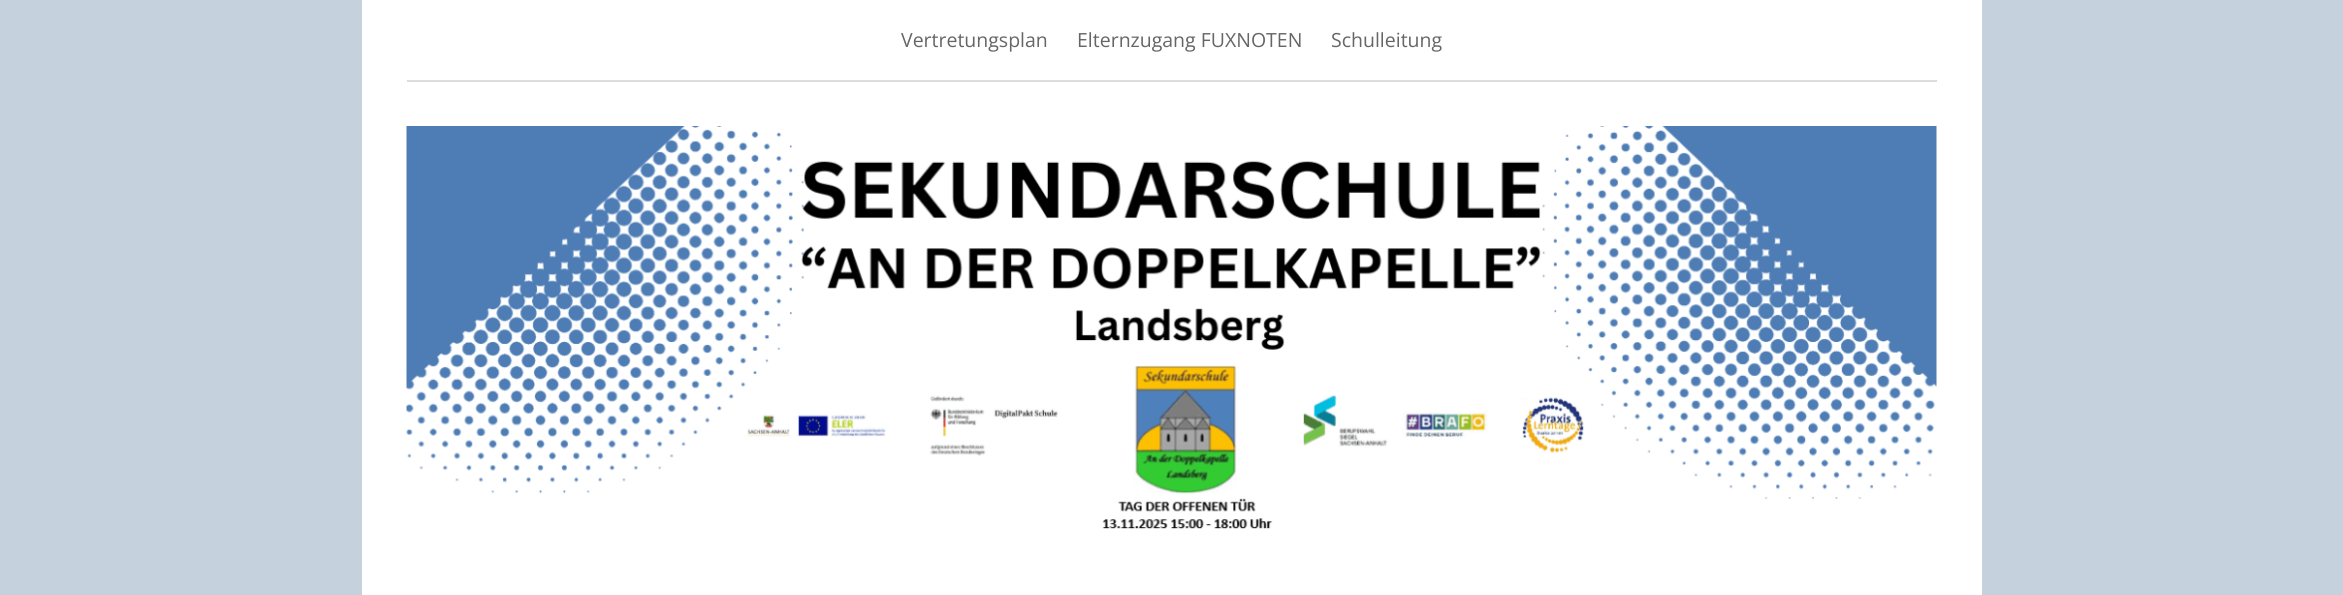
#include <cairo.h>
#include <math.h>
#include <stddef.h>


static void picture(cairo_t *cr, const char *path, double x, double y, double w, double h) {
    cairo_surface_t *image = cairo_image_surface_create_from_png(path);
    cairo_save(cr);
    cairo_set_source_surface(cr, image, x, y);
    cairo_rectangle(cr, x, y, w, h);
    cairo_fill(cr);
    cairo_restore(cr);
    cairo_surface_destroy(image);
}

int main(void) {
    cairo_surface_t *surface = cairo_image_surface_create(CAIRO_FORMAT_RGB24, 2343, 595);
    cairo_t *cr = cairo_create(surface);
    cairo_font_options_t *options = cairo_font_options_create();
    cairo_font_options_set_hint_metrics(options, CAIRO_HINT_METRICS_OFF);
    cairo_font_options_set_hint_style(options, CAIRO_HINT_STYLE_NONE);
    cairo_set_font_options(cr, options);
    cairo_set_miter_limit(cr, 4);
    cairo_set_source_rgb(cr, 0.773, 0.824, 0.867);
    cairo_paint(cr);
    cairo_set_source_rgb(cr, 1, 1, 1);
    cairo_rectangle(cr, 362, 0, 1620, 595);
    cairo_fill(cr);
    cairo_set_source_rgb(cr, 0.867, 0.867, 0.867);
    cairo_rectangle(cr, 407, 80, 1530, 2);
    cairo_fill(cr);
    cairo_select_font_face(cr, "Open Sans", CAIRO_FONT_SLANT_NORMAL, CAIRO_FONT_WEIGHT_NORMAL);
    cairo_set_font_size(cr, 19.5);
    cairo_set_source_rgb(cr, 0.4, 0.4, 0.4);
    cairo_move_to(cr, 901, 47);
    cairo_show_text(cr, "Vertretungsplan");
    cairo_move_to(cr, 1077, 47);
    cairo_show_text(cr, "Elternzugang FUXNOTEN");
    cairo_move_to(cr, 1331, 47);
    cairo_show_text(cr, "Schulleitung");
    picture(cr, "img1.png", 406, 126, 1531, 403);
    cairo_surface_write_to_png(surface, "page.png");
    cairo_font_options_destroy(options);
    cairo_destroy(cr);
    cairo_surface_destroy(surface);
    return 0;
}
